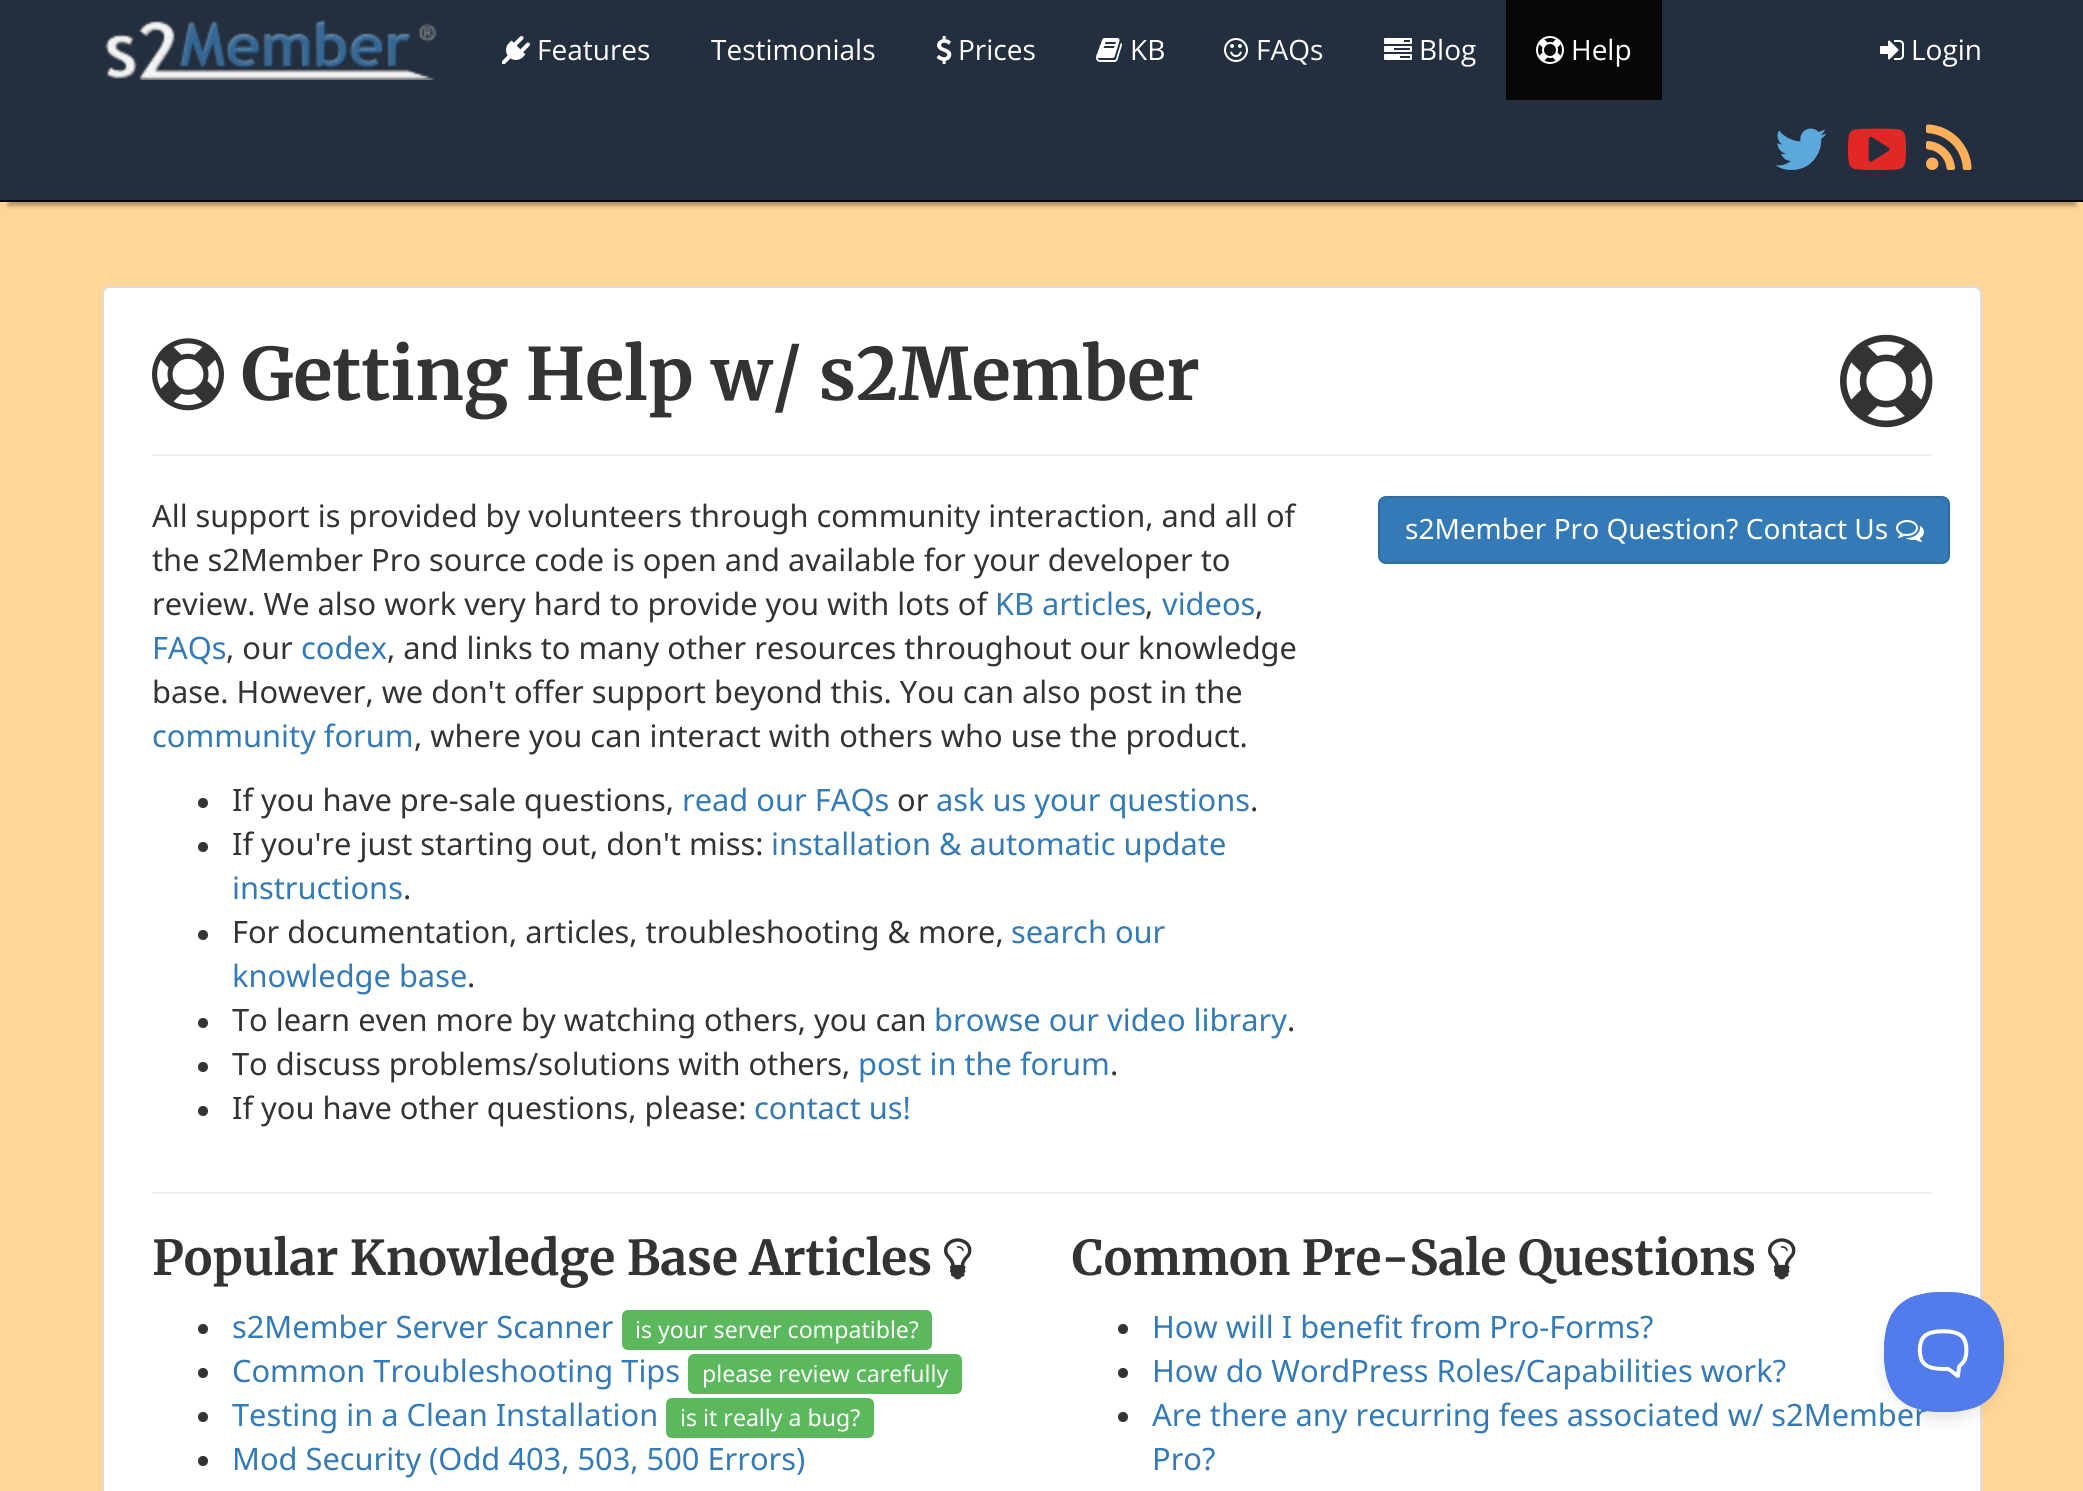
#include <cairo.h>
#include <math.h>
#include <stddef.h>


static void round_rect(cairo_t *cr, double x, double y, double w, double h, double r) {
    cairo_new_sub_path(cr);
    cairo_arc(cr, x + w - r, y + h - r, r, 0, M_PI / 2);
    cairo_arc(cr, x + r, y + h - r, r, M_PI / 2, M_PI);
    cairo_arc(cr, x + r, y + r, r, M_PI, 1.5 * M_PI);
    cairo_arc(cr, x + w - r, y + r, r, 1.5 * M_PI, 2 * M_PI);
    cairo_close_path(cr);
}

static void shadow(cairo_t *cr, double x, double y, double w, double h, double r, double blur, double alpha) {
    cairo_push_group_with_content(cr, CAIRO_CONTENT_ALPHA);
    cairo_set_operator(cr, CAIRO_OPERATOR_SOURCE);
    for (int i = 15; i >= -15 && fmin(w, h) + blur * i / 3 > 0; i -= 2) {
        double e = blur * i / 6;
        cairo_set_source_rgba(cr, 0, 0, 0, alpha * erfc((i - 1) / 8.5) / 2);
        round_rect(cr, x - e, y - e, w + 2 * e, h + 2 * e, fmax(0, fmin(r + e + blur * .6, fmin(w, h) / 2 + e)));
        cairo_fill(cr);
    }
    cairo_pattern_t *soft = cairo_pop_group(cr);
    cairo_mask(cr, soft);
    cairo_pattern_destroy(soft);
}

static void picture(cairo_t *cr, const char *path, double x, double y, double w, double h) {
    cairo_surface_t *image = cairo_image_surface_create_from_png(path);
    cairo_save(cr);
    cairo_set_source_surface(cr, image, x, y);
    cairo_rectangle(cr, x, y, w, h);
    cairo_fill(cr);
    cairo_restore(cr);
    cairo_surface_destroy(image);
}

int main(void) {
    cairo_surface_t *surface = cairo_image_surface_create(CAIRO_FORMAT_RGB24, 2083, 1491);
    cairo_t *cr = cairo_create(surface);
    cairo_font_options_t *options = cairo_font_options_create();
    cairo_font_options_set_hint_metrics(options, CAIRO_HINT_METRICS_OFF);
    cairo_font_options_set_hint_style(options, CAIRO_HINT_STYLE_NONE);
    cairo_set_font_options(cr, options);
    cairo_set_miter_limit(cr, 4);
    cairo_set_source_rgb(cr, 1, 0.839, 0.592);
    cairo_paint(cr);
    cairo_set_source_rgb(cr, 0, 0, 0);
    shadow(cr, 8, 20, 2068, 186, 0, 2, 0.3);
    cairo_set_source_rgb(cr, 0.137, 0.184, 0.243);
    cairo_rectangle(cr, 0, 0, 2083, 200);
    cairo_fill(cr);
    cairo_set_source_rgb(cr, 0.031, 0.031, 0.031);
    cairo_rectangle(cr, 0, 200, 2083, 2);
    cairo_fill(cr);
    picture(cr, "img1.png", 105, 20, 332, 60);
    picture(cr, "img2.png", 502, 36, 28, 28);
    cairo_select_font_face(cr, "Open Sans", CAIRO_FONT_SLANT_NORMAL, CAIRO_FONT_WEIGHT_NORMAL);
    cairo_set_font_size(cr, 28);
    cairo_set_source_rgb(cr, 1, 1, 1);
    cairo_move_to(cr, 537, 60);
    cairo_show_text(cr, "Features");
    cairo_move_to(cr, 711, 60);
    cairo_show_text(cr, "Testimonials");
    picture(cr, "img3.png", 936, 36, 16, 28);
    cairo_move_to(cr, 958, 60);
    cairo_show_text(cr, "Prices");
    picture(cr, "img4.png", 1096, 38, 26, 24);
    cairo_move_to(cr, 1130, 60);
    cairo_show_text(cr, "KB");
    picture(cr, "img5.png", 1224, 38, 24, 24);
    cairo_move_to(cr, 1256, 60);
    cairo_show_text(cr, "FAQs");
    picture(cr, "img6.png", 1384, 38, 28, 22);
    cairo_move_to(cr, 1419, 60);
    cairo_show_text(cr, "Blog");
    cairo_set_source_rgb(cr, 0.031, 0.031, 0.031);
    cairo_rectangle(cr, 1506, 0, 156, 100);
    cairo_fill(cr);
    picture(cr, "img7.png", 1536, 36, 28, 28);
    cairo_set_source_rgb(cr, 1, 1, 1);
    cairo_move_to(cr, 1571, 60);
    cairo_show_text(cr, "Help");
    picture(cr, "img8.png", 1880, 40, 24, 20);
    cairo_move_to(cr, 1911, 60);
    cairo_show_text(cr, "Login");
    picture(cr, "img9.png", 1775, 128, 52, 42);
    picture(cr, "img10.png", 1848, 128, 58, 42);
    picture(cr, "img11.png", 1926, 124, 46, 46);
    round_rect(cr, 103, 287, 1878, 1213, 7);
    cairo_fill_preserve(cr);
    cairo_set_source_rgb(cr, 0.867, 0.867, 0.867);
    cairo_stroke(cr);
    cairo_set_source_rgb(cr, 0.933, 0.933, 0.933);
    cairo_rectangle(cr, 152, 454, 1780, 2);
    cairo_fill(cr);
    picture(cr, "img12.png", 152, 338, 72, 73);
    cairo_select_font_face(cr, "Merriweather", CAIRO_FONT_SLANT_NORMAL, CAIRO_FONT_WEIGHT_BOLD);
    cairo_set_font_size(cr, 72);
    cairo_set_source_rgb(cr, 0.2, 0.2, 0.2);
    cairo_move_to(cr, 241, 400);
    cairo_show_text(cr, "Getting Help w/ s2Member");
    picture(cr, "img13.png", 1840, 334, 93, 94);
    cairo_select_font_face(cr, "Noto Sans", CAIRO_FONT_SLANT_NORMAL, CAIRO_FONT_WEIGHT_NORMAL);
    cairo_set_font_size(cr, 30.8);
    cairo_move_to(cr, 152, 527);
    cairo_show_text(cr, "All support is provided by volunteers through community interaction, and all of");
    cairo_move_to(cr, 152, 571);
    cairo_show_text(cr, "the s2Member Pro source code is open and available for your developer to");
    cairo_move_to(cr, 152, 615);
    cairo_show_text(cr, "review. We also work very hard to provide you with lots of");
    cairo_set_source_rgb(cr, 0.2, 0.478, 0.718);
    cairo_move_to(cr, 995, 615);
    cairo_show_text(cr, "KB articles");
    cairo_set_source_rgb(cr, 0.2, 0.2, 0.2);
    cairo_move_to(cr, 1145, 615);
    cairo_show_text(cr, ",");
    cairo_set_source_rgb(cr, 0.2, 0.478, 0.718);
    cairo_move_to(cr, 1162, 615);
    cairo_show_text(cr, "videos");
    cairo_set_source_rgb(cr, 0.2, 0.2, 0.2);
    cairo_move_to(cr, 1255, 615);
    cairo_show_text(cr, ",");
    cairo_set_source_rgb(cr, 0.2, 0.478, 0.718);
    cairo_move_to(cr, 152, 659);
    cairo_show_text(cr, "FAQs");
    cairo_set_source_rgb(cr, 0.2, 0.2, 0.2);
    cairo_move_to(cr, 226, 659);
    cairo_show_text(cr, ", our");
    cairo_set_source_rgb(cr, 0.2, 0.478, 0.718);
    cairo_move_to(cr, 301, 659);
    cairo_show_text(cr, "codex");
    cairo_set_source_rgb(cr, 0.2, 0.2, 0.2);
    cairo_move_to(cr, 387, 659);
    cairo_show_text(cr, ", and links to many other resources throughout our knowledge");
    cairo_move_to(cr, 152, 703);
    cairo_show_text(cr, "base. However, we don't offer support beyond this. You can also post in the");
    cairo_set_source_rgb(cr, 0.2, 0.478, 0.718);
    cairo_move_to(cr, 152, 747);
    cairo_show_text(cr, "community forum");
    cairo_set_source_rgb(cr, 0.2, 0.2, 0.2);
    cairo_move_to(cr, 414, 747);
    cairo_show_text(cr, ", where you can interact with others who use the product.");
    cairo_new_path(cr);
    cairo_arc(cr, 203, 803, 5, 0, 2 * M_PI);
    cairo_fill(cr);
    cairo_move_to(cr, 232, 811);
    cairo_show_text(cr, "If you have pre-sale questions,");
    cairo_set_source_rgb(cr, 0.2, 0.478, 0.718);
    cairo_move_to(cr, 682, 811);
    cairo_show_text(cr, "read our FAQs");
    cairo_set_source_rgb(cr, 0.2, 0.2, 0.2);
    cairo_move_to(cr, 897, 811);
    cairo_show_text(cr, "or");
    cairo_set_source_rgb(cr, 0.2, 0.478, 0.718);
    cairo_move_to(cr, 936, 811);
    cairo_show_text(cr, "ask us your questions");
    cairo_set_source_rgb(cr, 0.2, 0.2, 0.2);
    cairo_move_to(cr, 1250, 811);
    cairo_show_text(cr, ".");
    cairo_new_path(cr);
    cairo_arc(cr, 203, 847, 5, 0, 2 * M_PI);
    cairo_fill(cr);
    cairo_move_to(cr, 232, 855);
    cairo_show_text(cr, "If you're just starting out, don't miss:");
    cairo_set_source_rgb(cr, 0.2, 0.478, 0.718);
    cairo_move_to(cr, 771, 855);
    cairo_show_text(cr, "installation & automatic update");
    cairo_move_to(cr, 232, 899);
    cairo_show_text(cr, "instructions");
    cairo_set_source_rgb(cr, 0.2, 0.2, 0.2);
    cairo_move_to(cr, 403, 899);
    cairo_show_text(cr, ".");
    cairo_new_path(cr);
    cairo_arc(cr, 203, 935, 5, 0, 2 * M_PI);
    cairo_fill(cr);
    cairo_move_to(cr, 232, 943);
    cairo_show_text(cr, "For documentation, articles, troubleshooting & more,");
    cairo_set_source_rgb(cr, 0.2, 0.478, 0.718);
    cairo_move_to(cr, 1011, 943);
    cairo_show_text(cr, "search our");
    cairo_move_to(cr, 232, 987);
    cairo_show_text(cr, "knowledge base");
    cairo_set_source_rgb(cr, 0.2, 0.2, 0.2);
    cairo_move_to(cr, 467, 987);
    cairo_show_text(cr, ".");
    cairo_new_path(cr);
    cairo_arc(cr, 203, 1023, 5, 0, 2 * M_PI);
    cairo_fill(cr);
    cairo_move_to(cr, 232, 1031);
    cairo_show_text(cr, "To learn even more by watching others, you can");
    cairo_set_source_rgb(cr, 0.2, 0.478, 0.718);
    cairo_move_to(cr, 934, 1031);
    cairo_show_text(cr, "browse our video library");
    cairo_set_source_rgb(cr, 0.2, 0.2, 0.2);
    cairo_move_to(cr, 1287, 1031);
    cairo_show_text(cr, ".");
    cairo_new_path(cr);
    cairo_arc(cr, 203, 1067, 5, 0, 2 * M_PI);
    cairo_fill(cr);
    cairo_move_to(cr, 232, 1075);
    cairo_show_text(cr, "To discuss problems/solutions with others,");
    cairo_set_source_rgb(cr, 0.2, 0.478, 0.718);
    cairo_move_to(cr, 858, 1075);
    cairo_show_text(cr, "post in the forum");
    cairo_set_source_rgb(cr, 0.2, 0.2, 0.2);
    cairo_move_to(cr, 1110, 1075);
    cairo_show_text(cr, ".");
    cairo_new_path(cr);
    cairo_arc(cr, 203, 1111, 5, 0, 2 * M_PI);
    cairo_fill(cr);
    cairo_move_to(cr, 232, 1119);
    cairo_show_text(cr, "If you have other questions, please:");
    cairo_set_source_rgb(cr, 0.2, 0.478, 0.718);
    cairo_move_to(cr, 754, 1119);
    cairo_show_text(cr, "contact us!");
    round_rect(cr, 1379, 497, 570, 66, 7);
    cairo_fill_preserve(cr);
    cairo_set_source_rgb(cr, 0.18, 0.427, 0.643);
    cairo_stroke(cr);
    cairo_set_font_size(cr, 28);
    cairo_set_source_rgb(cr, 1, 1, 1);
    cairo_move_to(cr, 1405, 539);
    cairo_show_text(cr, "s2Member Pro Question? Contact Us");
    picture(cr, "img14.png", 1896, 520, 28, 22);
    cairo_set_source_rgb(cr, 0.933, 0.933, 0.933);
    cairo_rectangle(cr, 152, 1192, 1780, 2);
    cairo_fill(cr);
    cairo_select_font_face(cr, "Merriweather", CAIRO_FONT_SLANT_NORMAL, CAIRO_FONT_WEIGHT_BOLD);
    cairo_set_font_size(cr, 48);
    cairo_set_source_rgb(cr, 0.2, 0.2, 0.2);
    cairo_move_to(cr, 152, 1275);
    cairo_show_text(cr, "Popular Knowledge Base Articles");
    picture(cr, "img15.png", 944, 1238, 28, 42);
    cairo_arc(cr, 203, 1329, 5, 0, 2 * M_PI);
    cairo_fill(cr);
    cairo_select_font_face(cr, "Noto Sans", CAIRO_FONT_SLANT_NORMAL, CAIRO_FONT_WEIGHT_NORMAL);
    cairo_set_font_size(cr, 30.8);
    cairo_set_source_rgb(cr, 0.2, 0.478, 0.718);
    cairo_move_to(cr, 232, 1338);
    cairo_show_text(cr, "s2Member Server Scanner");
    cairo_set_source_rgb(cr, 0.361, 0.722, 0.361);
    round_rect(cr, 622, 1310, 310, 40, 6);
    cairo_fill(cr);
    cairo_set_font_size(cr, 23.1);
    cairo_set_source_rgb(cr, 1, 1, 1);
    cairo_move_to(cr, 635, 1338);
    cairo_show_text(cr, "is your server compatible?");
    cairo_set_source_rgb(cr, 0.2, 0.2, 0.2);
    cairo_new_path(cr);
    cairo_arc(cr, 203, 1373, 5, 0, 2 * M_PI);
    cairo_fill(cr);
    cairo_set_font_size(cr, 30.8);
    cairo_set_source_rgb(cr, 0.2, 0.478, 0.718);
    cairo_move_to(cr, 232, 1382);
    cairo_show_text(cr, "Common Troubleshooting Tips");
    cairo_set_source_rgb(cr, 0.361, 0.722, 0.361);
    round_rect(cr, 688, 1354, 274, 40, 6);
    cairo_fill(cr);
    cairo_set_font_size(cr, 23.1);
    cairo_set_source_rgb(cr, 1, 1, 1);
    cairo_move_to(cr, 702, 1382);
    cairo_show_text(cr, "please review carefully");
    cairo_set_source_rgb(cr, 0.2, 0.2, 0.2);
    cairo_new_path(cr);
    cairo_arc(cr, 203, 1417, 5, 0, 2 * M_PI);
    cairo_fill(cr);
    cairo_set_font_size(cr, 30.8);
    cairo_set_source_rgb(cr, 0.2, 0.478, 0.718);
    cairo_move_to(cr, 232, 1426);
    cairo_show_text(cr, "Testing in a Clean Installation");
    cairo_set_source_rgb(cr, 0.361, 0.722, 0.361);
    round_rect(cr, 666, 1398, 208, 40, 6);
    cairo_fill(cr);
    cairo_set_font_size(cr, 23.1);
    cairo_set_source_rgb(cr, 1, 1, 1);
    cairo_move_to(cr, 680, 1426);
    cairo_show_text(cr, "is it really a bug?");
    cairo_set_source_rgb(cr, 0.2, 0.2, 0.2);
    cairo_new_path(cr);
    cairo_arc(cr, 203, 1461, 5, 0, 2 * M_PI);
    cairo_fill(cr);
    cairo_set_font_size(cr, 30.8);
    cairo_set_source_rgb(cr, 0.2, 0.478, 0.718);
    cairo_move_to(cr, 232, 1470);
    cairo_show_text(cr, "Mod Security (Odd 403, 503, 500 Errors)");
    cairo_select_font_face(cr, "Merriweather", CAIRO_FONT_SLANT_NORMAL, CAIRO_FONT_WEIGHT_BOLD);
    cairo_set_font_size(cr, 48);
    cairo_set_source_rgb(cr, 0.2, 0.2, 0.2);
    cairo_move_to(cr, 1072, 1275);
    cairo_show_text(cr, "Common Pre-Sale Questions");
    picture(cr, "img15.png", 1768, 1238, 28, 42);
    cairo_arc(cr, 1123, 1329, 5, 0, 2 * M_PI);
    cairo_fill(cr);
    cairo_select_font_face(cr, "Noto Sans", CAIRO_FONT_SLANT_NORMAL, CAIRO_FONT_WEIGHT_NORMAL);
    cairo_set_font_size(cr, 30.8);
    cairo_set_source_rgb(cr, 0.2, 0.478, 0.718);
    cairo_move_to(cr, 1152, 1338);
    cairo_show_text(cr, "How will I benefit from Pro-Forms?");
    cairo_set_source_rgb(cr, 0.2, 0.2, 0.2);
    cairo_new_path(cr);
    cairo_arc(cr, 1123, 1373, 5, 0, 2 * M_PI);
    cairo_fill(cr);
    cairo_set_source_rgb(cr, 0.2, 0.478, 0.718);
    cairo_move_to(cr, 1152, 1382);
    cairo_show_text(cr, "How do WordPress Roles/Capabilities work?");
    cairo_set_source_rgb(cr, 0.2, 0.2, 0.2);
    cairo_new_path(cr);
    cairo_arc(cr, 1123, 1417, 5, 0, 2 * M_PI);
    cairo_fill(cr);
    cairo_set_source_rgb(cr, 0.2, 0.478, 0.718);
    cairo_move_to(cr, 1152, 1426);
    cairo_show_text(cr, "Are there any recurring fees associated w/ s2Member");
    cairo_move_to(cr, 1152, 1470);
    cairo_show_text(cr, "Pro?");
    cairo_set_source_rgb(cr, 0, 0, 0);
    shadow(cr, 1884, 1300, 120, 120, 60, 7, 0.1);
    picture(cr, "img16.png", 1884, 1292, 120, 120);
    cairo_surface_write_to_png(surface, "page.png");
    cairo_font_options_destroy(options);
    cairo_destroy(cr);
    cairo_surface_destroy(surface);
    return 0;
}
